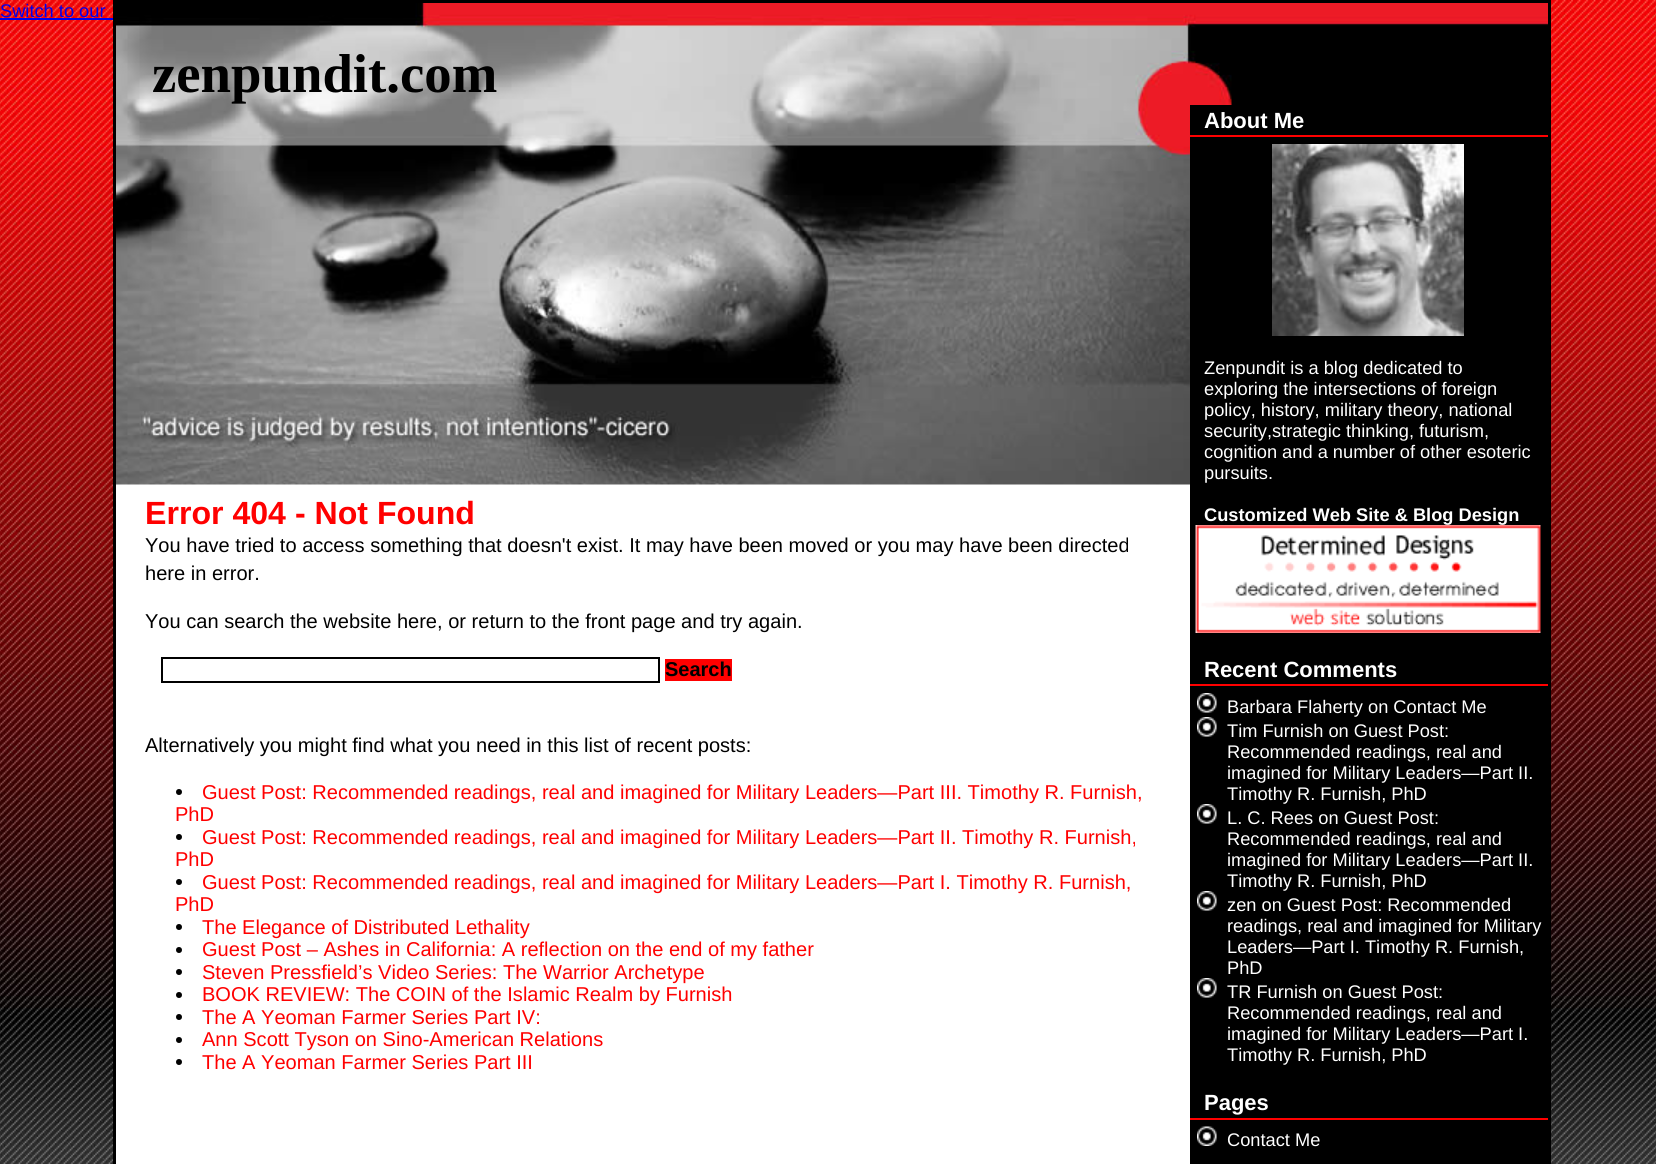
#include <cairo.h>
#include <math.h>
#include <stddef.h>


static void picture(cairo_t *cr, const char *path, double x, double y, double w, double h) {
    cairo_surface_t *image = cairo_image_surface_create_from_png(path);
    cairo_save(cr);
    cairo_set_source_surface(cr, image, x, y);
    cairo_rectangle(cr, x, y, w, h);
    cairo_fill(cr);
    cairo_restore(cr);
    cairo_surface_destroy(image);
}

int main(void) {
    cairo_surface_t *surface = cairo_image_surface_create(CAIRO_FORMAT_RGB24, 1656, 1164);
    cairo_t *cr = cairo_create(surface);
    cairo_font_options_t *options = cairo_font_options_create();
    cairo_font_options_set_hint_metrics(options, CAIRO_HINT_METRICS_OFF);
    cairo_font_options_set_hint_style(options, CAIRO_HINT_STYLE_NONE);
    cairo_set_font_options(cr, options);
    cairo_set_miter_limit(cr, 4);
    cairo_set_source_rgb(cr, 1, 1, 1);
    cairo_paint(cr);
    picture(cr, "img1.png", 0, 0, 1656, 1164);
    cairo_select_font_face(cr, "Liberation Sans", CAIRO_FONT_SLANT_NORMAL, CAIRO_FONT_WEIGHT_NORMAL);
    cairo_set_font_size(cr, 18.25);
    cairo_set_source_rgb(cr, 0, 0, 0.933);
    cairo_move_to(cr, 0, 17);
    cairo_show_text(cr, "Switch to our");
    cairo_rectangle(cr, 0, 18, 113, 2);
    cairo_fill(cr);
    cairo_set_source_rgb(cr, 1, 1, 1);
    cairo_rectangle(cr, 116, 484, 1074, 680);
    cairo_fill(cr);
    picture(cr, "img2.png", 116, 3, 1432, 482);
    cairo_rectangle(cr, 114.5, 1.5, 1435, 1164);
    cairo_set_source_rgb(cr, 0, 0, 0);
    cairo_set_line_width(cr, 3);
    cairo_stroke(cr);
    cairo_select_font_face(cr, "Liberation Serif", CAIRO_FONT_SLANT_NORMAL, CAIRO_FONT_WEIGHT_BOLD);
    cairo_set_font_size(cr, 54.75);
    cairo_move_to(cr, 152, 92);
    cairo_show_text(cr, "zenpundit.com");
    cairo_select_font_face(cr, "Liberation Sans", CAIRO_FONT_SLANT_NORMAL, CAIRO_FONT_WEIGHT_BOLD);
    cairo_set_font_size(cr, 32.1);
    cairo_set_source_rgb(cr, 1, 0, 0);
    cairo_move_to(cr, 145, 524);
    cairo_show_text(cr, "Error 404 - Not Found");
    cairo_select_font_face(cr, "Liberation Sans", CAIRO_FONT_SLANT_NORMAL, CAIRO_FONT_WEIGHT_NORMAL);
    cairo_set_font_size(cr, 20.05);
    cairo_set_source_rgb(cr, 0, 0, 0);
    cairo_move_to(cr, 145, 552);
    cairo_show_text(cr, "You have tried to access something that doesn't exist. It may have been moved or you may have been directed");
    cairo_move_to(cr, 145, 580);
    cairo_show_text(cr, "here in error.");
    cairo_move_to(cr, 145, 628);
    cairo_show_text(cr, "You can search the website here, or return to the front page and try again.");
    cairo_rectangle(cr, 162, 658, 497, 24);
    cairo_set_line_width(cr, 2);
    cairo_stroke(cr);
    cairo_set_source_rgb(cr, 1, 0, 0);
    cairo_rectangle(cr, 665, 659, 67, 22);
    cairo_fill(cr);
    cairo_select_font_face(cr, "Liberation Sans", CAIRO_FONT_SLANT_NORMAL, CAIRO_FONT_WEIGHT_BOLD);
    cairo_set_font_size(cr, 20);
    cairo_set_source_rgb(cr, 0, 0, 0);
    cairo_move_to(cr, 665, 676);
    cairo_show_text(cr, "Search");
    cairo_select_font_face(cr, "Liberation Sans", CAIRO_FONT_SLANT_NORMAL, CAIRO_FONT_WEIGHT_NORMAL);
    cairo_set_font_size(cr, 20.05);
    cairo_move_to(cr, 145, 752);
    cairo_show_text(cr, "Alternatively you might find what you need in this list of recent posts:");
    cairo_new_path(cr);
    cairo_arc(cr, 179, 792, 3, 0, 2 * M_PI);
    cairo_fill(cr);
    cairo_set_source_rgb(cr, 1, 0, 0);
    cairo_move_to(cr, 202, 799);
    cairo_show_text(cr, "Guest Post: Recommended readings, real and imagined for Military Leaders—Part III. Timothy R. Furnish,");
    cairo_move_to(cr, 175, 821);
    cairo_show_text(cr, "PhD");
    cairo_set_source_rgb(cr, 0, 0, 0);
    cairo_new_path(cr);
    cairo_arc(cr, 179, 837, 3, 0, 2 * M_PI);
    cairo_fill(cr);
    cairo_set_source_rgb(cr, 1, 0, 0);
    cairo_move_to(cr, 202, 844);
    cairo_show_text(cr, "Guest Post: Recommended readings, real and imagined for Military Leaders—Part II. Timothy R. Furnish,");
    cairo_move_to(cr, 175, 866);
    cairo_show_text(cr, "PhD");
    cairo_set_source_rgb(cr, 0, 0, 0);
    cairo_new_path(cr);
    cairo_arc(cr, 179, 882, 3, 0, 2 * M_PI);
    cairo_fill(cr);
    cairo_set_source_rgb(cr, 1, 0, 0);
    cairo_move_to(cr, 202, 889);
    cairo_show_text(cr, "Guest Post: Recommended readings, real and imagined for Military Leaders—Part I. Timothy R. Furnish,");
    cairo_move_to(cr, 175, 911);
    cairo_show_text(cr, "PhD");
    cairo_set_source_rgb(cr, 0, 0, 0);
    cairo_new_path(cr);
    cairo_arc(cr, 179, 927, 3, 0, 2 * M_PI);
    cairo_fill(cr);
    cairo_set_source_rgb(cr, 1, 0, 0);
    cairo_move_to(cr, 202, 934);
    cairo_show_text(cr, "The Elegance of Distributed Lethality");
    cairo_set_source_rgb(cr, 0, 0, 0);
    cairo_new_path(cr);
    cairo_arc(cr, 179, 950, 3, 0, 2 * M_PI);
    cairo_fill(cr);
    cairo_set_source_rgb(cr, 1, 0, 0);
    cairo_move_to(cr, 202, 956);
    cairo_show_text(cr, "Guest Post – Ashes in California: A reflection on the end of my father");
    cairo_set_source_rgb(cr, 0, 0, 0);
    cairo_new_path(cr);
    cairo_arc(cr, 179, 972, 3, 0, 2 * M_PI);
    cairo_fill(cr);
    cairo_set_source_rgb(cr, 1, 0, 0);
    cairo_move_to(cr, 202, 979);
    cairo_show_text(cr, "Steven Pressfield’s Video Series: The Warrior Archetype");
    cairo_set_source_rgb(cr, 0, 0, 0);
    cairo_new_path(cr);
    cairo_arc(cr, 179, 995, 3, 0, 2 * M_PI);
    cairo_fill(cr);
    cairo_set_source_rgb(cr, 1, 0, 0);
    cairo_move_to(cr, 202, 1001);
    cairo_show_text(cr, "BOOK REVIEW: The COIN of the Islamic Realm by Furnish");
    cairo_set_source_rgb(cr, 0, 0, 0);
    cairo_new_path(cr);
    cairo_arc(cr, 179, 1017, 3, 0, 2 * M_PI);
    cairo_fill(cr);
    cairo_set_source_rgb(cr, 1, 0, 0);
    cairo_move_to(cr, 202, 1024);
    cairo_show_text(cr, "The A Yeoman Farmer Series Part IV:");
    cairo_set_source_rgb(cr, 0, 0, 0);
    cairo_new_path(cr);
    cairo_arc(cr, 179, 1040, 3, 0, 2 * M_PI);
    cairo_fill(cr);
    cairo_set_source_rgb(cr, 1, 0, 0);
    cairo_move_to(cr, 202, 1046);
    cairo_show_text(cr, "Ann Scott Tyson on Sino-American Relations");
    cairo_set_source_rgb(cr, 0, 0, 0);
    cairo_new_path(cr);
    cairo_arc(cr, 179, 1062, 3, 0, 2 * M_PI);
    cairo_fill(cr);
    cairo_set_source_rgb(cr, 1, 0, 0);
    cairo_move_to(cr, 202, 1069);
    cairo_show_text(cr, "The A Yeoman Farmer Series Part III");
    cairo_set_source_rgb(cr, 0, 0, 0);
    cairo_rectangle(cr, 1190, 105, 358, 1059);
    cairo_fill(cr);
    cairo_set_source_rgb(cr, 1, 0, 0);
    cairo_rectangle(cr, 1190, 135, 358, 2);
    cairo_fill(cr);
    cairo_select_font_face(cr, "Liberation Sans", CAIRO_FONT_SLANT_NORMAL, CAIRO_FONT_WEIGHT_BOLD);
    cairo_set_font_size(cr, 22);
    cairo_set_source_rgb(cr, 1, 1, 1);
    cairo_move_to(cr, 1204, 128);
    cairo_show_text(cr, "About Me");
    picture(cr, "img3.png", 1272, 144, 192, 192);
    cairo_select_font_face(cr, "Liberation Sans", CAIRO_FONT_SLANT_NORMAL, CAIRO_FONT_WEIGHT_NORMAL);
    cairo_set_font_size(cr, 18.25);
    cairo_move_to(cr, 1204, 374);
    cairo_show_text(cr, "Zenpundit is a blog dedicated to");
    cairo_move_to(cr, 1204, 395);
    cairo_show_text(cr, "exploring the intersections of foreign");
    cairo_move_to(cr, 1204, 416);
    cairo_show_text(cr, "policy, history, military theory, national");
    cairo_move_to(cr, 1204, 437);
    cairo_show_text(cr, "security,strategic thinking, futurism,");
    cairo_move_to(cr, 1204, 458);
    cairo_show_text(cr, "cognition and a number of other esoteric");
    cairo_move_to(cr, 1204, 479);
    cairo_show_text(cr, "pursuits.");
    cairo_select_font_face(cr, "Liberation Sans", CAIRO_FONT_SLANT_NORMAL, CAIRO_FONT_WEIGHT_BOLD);
    cairo_move_to(cr, 1204, 521);
    cairo_show_text(cr, "Customized Web Site & Blog Design");
    picture(cr, "img4.png", 1195, 525, 346, 108);
    cairo_set_source_rgb(cr, 1, 0, 0);
    cairo_rectangle(cr, 1190, 684, 358, 2);
    cairo_fill(cr);
    cairo_set_font_size(cr, 22);
    cairo_set_source_rgb(cr, 1, 1, 1);
    cairo_move_to(cr, 1204, 677);
    cairo_show_text(cr, "Recent Comments");
    picture(cr, "img5.png", 1197, 693, 20, 20);
    cairo_select_font_face(cr, "Liberation Sans", CAIRO_FONT_SLANT_NORMAL, CAIRO_FONT_WEIGHT_NORMAL);
    cairo_set_font_size(cr, 18.25);
    cairo_move_to(cr, 1227, 713);
    cairo_show_text(cr, "Barbara Flaherty on Contact Me");
    picture(cr, "img5.png", 1197, 717, 20, 20);
    cairo_move_to(cr, 1227, 737);
    cairo_show_text(cr, "Tim Furnish on Guest Post:");
    cairo_move_to(cr, 1227, 758);
    cairo_show_text(cr, "Recommended readings, real and");
    cairo_move_to(cr, 1227, 779);
    cairo_show_text(cr, "imagined for Military Leaders—Part II.");
    cairo_move_to(cr, 1227, 800);
    cairo_show_text(cr, "Timothy R. Furnish, PhD");
    picture(cr, "img5.png", 1197, 804, 20, 20);
    cairo_move_to(cr, 1227, 824);
    cairo_show_text(cr, "L. C. Rees on Guest Post:");
    cairo_move_to(cr, 1227, 845);
    cairo_show_text(cr, "Recommended readings, real and");
    cairo_move_to(cr, 1227, 866);
    cairo_show_text(cr, "imagined for Military Leaders—Part II.");
    cairo_move_to(cr, 1227, 887);
    cairo_show_text(cr, "Timothy R. Furnish, PhD");
    picture(cr, "img5.png", 1197, 891, 20, 20);
    cairo_move_to(cr, 1227, 911);
    cairo_show_text(cr, "zen on Guest Post: Recommended");
    cairo_move_to(cr, 1227, 932);
    cairo_show_text(cr, "readings, real and imagined for Military");
    cairo_move_to(cr, 1227, 953);
    cairo_show_text(cr, "Leaders—Part I. Timothy R. Furnish,");
    cairo_move_to(cr, 1227, 974);
    cairo_show_text(cr, "PhD");
    picture(cr, "img5.png", 1197, 978, 20, 20);
    cairo_move_to(cr, 1227, 998);
    cairo_show_text(cr, "TR Furnish on Guest Post:");
    cairo_move_to(cr, 1227, 1019);
    cairo_show_text(cr, "Recommended readings, real and");
    cairo_move_to(cr, 1227, 1040);
    cairo_show_text(cr, "imagined for Military Leaders—Part I.");
    cairo_move_to(cr, 1227, 1061);
    cairo_show_text(cr, "Timothy R. Furnish, PhD");
    cairo_set_source_rgb(cr, 1, 0, 0);
    cairo_rectangle(cr, 1190, 1118, 358, 2);
    cairo_fill(cr);
    cairo_select_font_face(cr, "Liberation Sans", CAIRO_FONT_SLANT_NORMAL, CAIRO_FONT_WEIGHT_BOLD);
    cairo_set_font_size(cr, 22);
    cairo_set_source_rgb(cr, 1, 1, 1);
    cairo_move_to(cr, 1204, 1110);
    cairo_show_text(cr, "Pages");
    picture(cr, "img6.png", 1197, 1126, 20, 20);
    cairo_select_font_face(cr, "Liberation Sans", CAIRO_FONT_SLANT_NORMAL, CAIRO_FONT_WEIGHT_NORMAL);
    cairo_set_font_size(cr, 18.25);
    cairo_move_to(cr, 1227, 1146);
    cairo_show_text(cr, "Contact Me");
    cairo_surface_write_to_png(surface, "page.png");
    cairo_font_options_destroy(options);
    cairo_destroy(cr);
    cairo_surface_destroy(surface);
    return 0;
}
